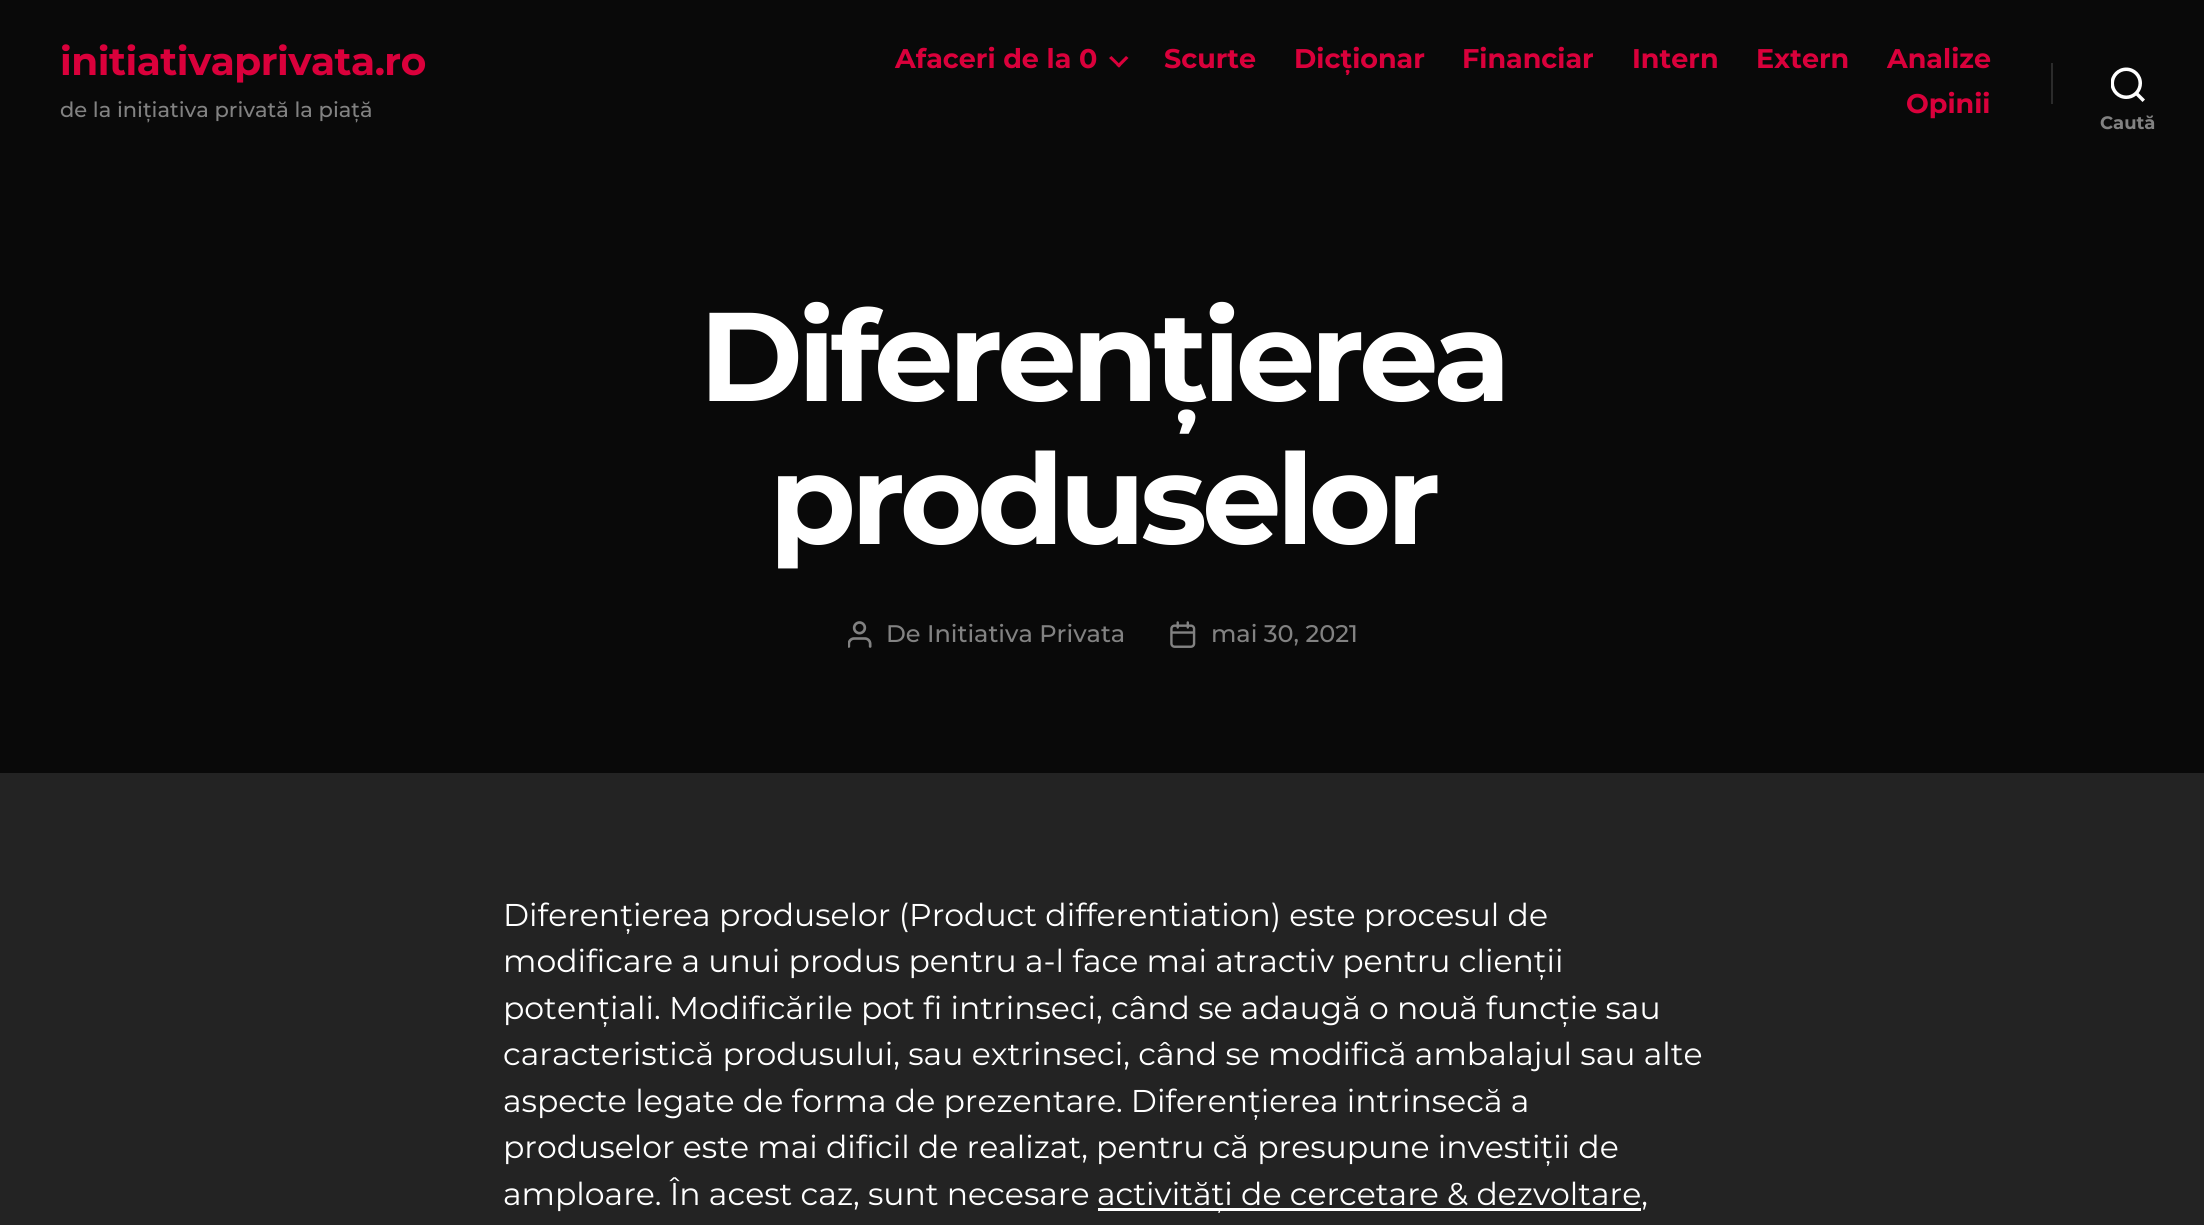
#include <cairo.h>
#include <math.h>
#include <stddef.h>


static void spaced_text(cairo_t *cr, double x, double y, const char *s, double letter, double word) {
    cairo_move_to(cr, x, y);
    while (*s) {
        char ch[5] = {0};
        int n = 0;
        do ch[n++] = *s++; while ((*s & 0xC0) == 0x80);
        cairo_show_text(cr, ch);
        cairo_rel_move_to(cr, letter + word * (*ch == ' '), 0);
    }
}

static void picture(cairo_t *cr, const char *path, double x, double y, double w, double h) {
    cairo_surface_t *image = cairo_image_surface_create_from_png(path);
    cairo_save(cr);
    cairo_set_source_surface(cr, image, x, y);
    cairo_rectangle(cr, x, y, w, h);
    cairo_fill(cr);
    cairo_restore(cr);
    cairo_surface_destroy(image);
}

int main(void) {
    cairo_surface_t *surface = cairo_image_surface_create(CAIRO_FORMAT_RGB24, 2204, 1225);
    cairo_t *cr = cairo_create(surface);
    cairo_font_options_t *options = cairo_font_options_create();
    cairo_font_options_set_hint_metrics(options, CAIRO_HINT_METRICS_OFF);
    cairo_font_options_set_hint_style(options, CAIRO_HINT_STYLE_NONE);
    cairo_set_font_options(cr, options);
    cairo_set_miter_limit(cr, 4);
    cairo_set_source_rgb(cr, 0.137, 0.137, 0.137);
    cairo_paint(cr);
    cairo_set_source_rgb(cr, 0.039, 0.039, 0.039);
    cairo_rectangle(cr, 0, 0, 2204, 773);
    cairo_fill(cr);
    cairo_select_font_face(cr, "Montserrat", CAIRO_FONT_SLANT_NORMAL, CAIRO_FONT_WEIGHT_BOLD);
    cairo_set_font_size(cr, 39);
    cairo_set_source_rgb(cr, 0.855, 0, 0.231);
    spaced_text(cr, 60, 75, "initiativaprivata.ro", -0.5, 0);
    cairo_select_font_face(cr, "Montserrat Medium", CAIRO_FONT_SLANT_NORMAL, CAIRO_FONT_WEIGHT_NORMAL);
    cairo_set_font_size(cr, 21);
    cairo_set_source_rgb(cr, 0.51, 0.51, 0.51);
    cairo_move_to(cr, 60, 117);
    cairo_show_text(cr, "de la inițiativa privată la piață");
    cairo_select_font_face(cr, "Montserrat", CAIRO_FONT_SLANT_NORMAL, CAIRO_FONT_WEIGHT_BOLD);
    cairo_set_font_size(cr, 27);
    cairo_set_source_rgb(cr, 0.855, 0, 0.231);
    cairo_move_to(cr, 895, 68);
    cairo_show_text(cr, "Afaceri de la 0");
    cairo_new_path(cr);
    cairo_move_to(cr, 1109, 58);
    cairo_line_to(cr, 1111.5, 56);
    cairo_line_to(cr, 1121, 65.5);
    cairo_line_to(cr, 1119, 67.5);
    cairo_close_path(cr);
    cairo_fill(cr);
    cairo_new_path(cr);
    cairo_move_to(cr, 1116.5, 65.5);
    cairo_line_to(cr, 1126, 56);
    cairo_line_to(cr, 1128.5, 58);
    cairo_line_to(cr, 1119, 67.5);
    cairo_close_path(cr);
    cairo_fill(cr);
    cairo_move_to(cr, 1164, 68);
    cairo_show_text(cr, "Scurte");
    cairo_move_to(cr, 1294, 68);
    cairo_show_text(cr, "Dicționar");
    cairo_move_to(cr, 1462, 68);
    cairo_show_text(cr, "Financiar");
    cairo_move_to(cr, 1632, 68);
    cairo_show_text(cr, "Intern");
    cairo_move_to(cr, 1756, 68);
    cairo_show_text(cr, "Extern");
    cairo_move_to(cr, 1887, 68);
    cairo_show_text(cr, "Analize");
    cairo_move_to(cr, 1906, 113);
    cairo_show_text(cr, "Opinii");
    cairo_set_source_rgb(cr, 0.169, 0.169, 0.169);
    cairo_rectangle(cr, 2051, 63, 2, 41);
    cairo_fill(cr);
    picture(cr, "img1.png", 2111, 67, 34, 35);
    cairo_set_font_size(cr, 18);
    cairo_set_source_rgb(cr, 0.51, 0.51, 0.51);
    cairo_move_to(cr, 2100, 129);
    cairo_show_text(cr, "Caută");
    cairo_set_font_size(cr, 126);
    cairo_set_source_rgb(cr, 1, 1, 1);
    spaced_text(cr, 699, 401, "Diferențierea", -5.25, 0);
    spaced_text(cr, 769, 544, "produselor", -5.25, 0);
    picture(cr, "img2.png", 848, 621, 24, 27);
    cairo_select_font_face(cr, "Montserrat Medium", CAIRO_FONT_SLANT_NORMAL, CAIRO_FONT_WEIGHT_NORMAL);
    cairo_set_font_size(cr, 24);
    cairo_set_source_rgb(cr, 0.51, 0.51, 0.51);
    cairo_move_to(cr, 886, 642);
    cairo_show_text(cr, "De Initiativa Privata");
    picture(cr, "img3.png", 1170, 621, 26, 27);
    cairo_move_to(cr, 1211, 642);
    cairo_show_text(cr, "mai 30, 2021");
    cairo_select_font_face(cr, "Montserrat", CAIRO_FONT_SLANT_NORMAL, CAIRO_FONT_WEIGHT_NORMAL);
    cairo_set_font_size(cr, 31.5);
    cairo_set_source_rgb(cr, 1, 1, 1);
    cairo_move_to(cr, 503, 926);
    cairo_show_text(cr, "Diferențierea produselor (Product differentiation) este procesul de");
    cairo_move_to(cr, 503, 972);
    cairo_show_text(cr, "modificare a unui produs pentru a-l face mai atractiv pentru clienții");
    cairo_move_to(cr, 503, 1019);
    cairo_show_text(cr, "potențiali. Modificările pot fi intrinseci, când se adaugă o nouă funcție sau");
    cairo_move_to(cr, 503, 1065);
    cairo_show_text(cr, "caracteristică produsului, sau extrinseci, când se modifică ambalajul sau alte");
    cairo_move_to(cr, 503, 1112);
    cairo_show_text(cr, "aspecte legate de forma de prezentare. Diferențierea intrinsecă a");
    cairo_move_to(cr, 503, 1158);
    cairo_show_text(cr, "produselor este mai dificil de realizat, pentru că presupune investiții de");
    cairo_move_to(cr, 503, 1205);
    cairo_show_text(cr, "amploare. În acest caz, sunt necesare");
    cairo_rectangle(cr, 1098, 1208, 543, 3);
    cairo_fill(cr);
    cairo_move_to(cr, 1097, 1205);
    cairo_show_text(cr, "activități de cercetare & dezvoltare,");
    cairo_surface_write_to_png(surface, "page.png");
    cairo_font_options_destroy(options);
    cairo_destroy(cr);
    cairo_surface_destroy(surface);
    return 0;
}
